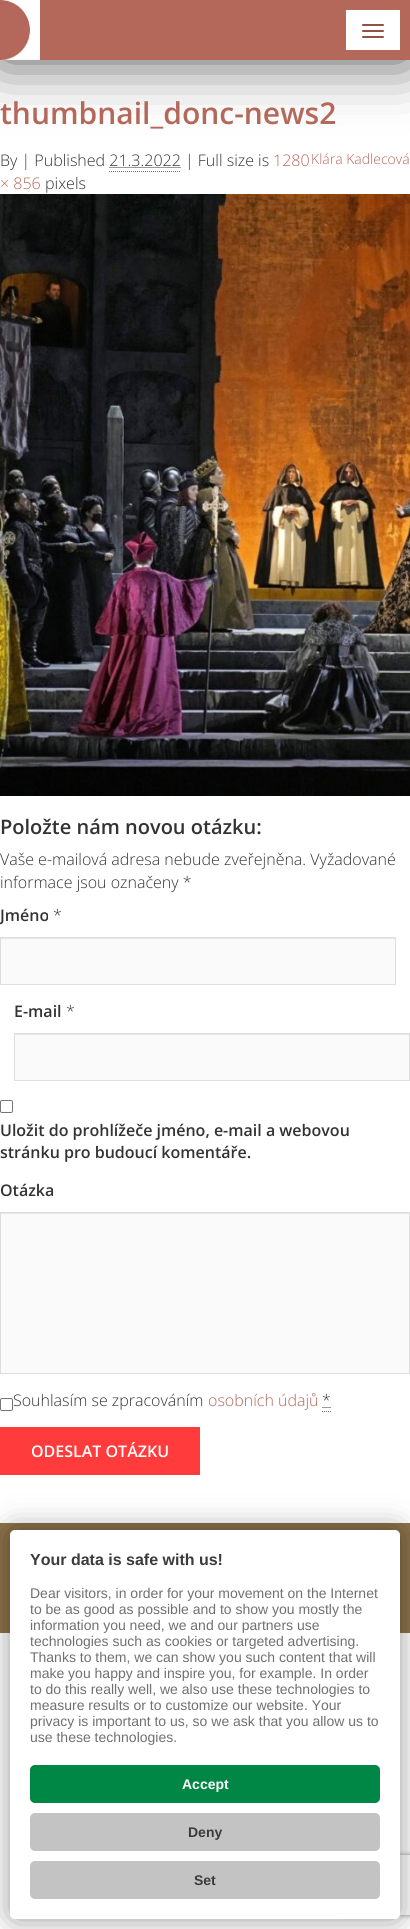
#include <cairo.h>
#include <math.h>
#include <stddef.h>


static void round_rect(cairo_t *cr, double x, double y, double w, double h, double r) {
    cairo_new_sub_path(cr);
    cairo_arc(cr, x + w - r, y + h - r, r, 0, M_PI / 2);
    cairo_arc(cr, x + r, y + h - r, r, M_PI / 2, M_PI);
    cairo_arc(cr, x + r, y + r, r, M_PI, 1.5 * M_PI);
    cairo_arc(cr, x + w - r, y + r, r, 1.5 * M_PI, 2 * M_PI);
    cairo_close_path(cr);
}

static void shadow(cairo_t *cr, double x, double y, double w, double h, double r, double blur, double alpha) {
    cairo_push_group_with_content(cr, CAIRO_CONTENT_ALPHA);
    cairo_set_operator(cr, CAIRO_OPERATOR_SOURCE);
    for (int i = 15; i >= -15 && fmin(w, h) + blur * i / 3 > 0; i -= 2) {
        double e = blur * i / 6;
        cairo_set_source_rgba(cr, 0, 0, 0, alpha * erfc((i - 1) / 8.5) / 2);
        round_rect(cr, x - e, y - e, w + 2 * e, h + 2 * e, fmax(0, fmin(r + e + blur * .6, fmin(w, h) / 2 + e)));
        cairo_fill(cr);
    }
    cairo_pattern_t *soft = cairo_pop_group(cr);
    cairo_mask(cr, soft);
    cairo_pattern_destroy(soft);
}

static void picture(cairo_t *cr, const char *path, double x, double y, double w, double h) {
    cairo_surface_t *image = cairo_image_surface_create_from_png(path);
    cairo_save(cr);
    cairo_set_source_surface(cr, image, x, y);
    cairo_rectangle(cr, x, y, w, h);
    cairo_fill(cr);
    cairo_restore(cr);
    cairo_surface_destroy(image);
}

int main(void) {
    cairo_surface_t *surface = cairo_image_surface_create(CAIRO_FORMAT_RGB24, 410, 1929);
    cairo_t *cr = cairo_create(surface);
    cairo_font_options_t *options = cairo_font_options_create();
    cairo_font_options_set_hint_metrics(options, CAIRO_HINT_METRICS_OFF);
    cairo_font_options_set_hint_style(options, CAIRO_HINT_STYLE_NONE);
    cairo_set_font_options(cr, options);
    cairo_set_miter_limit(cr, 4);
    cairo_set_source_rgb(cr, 1, 1, 1);
    cairo_paint(cr);
    cairo_set_source_rgb(cr, 0.31, 0.31, 0.31);
    shadow(cr, 0, 0, 410, 60, 0, 30, 1);
    cairo_set_source_rgb(cr, 0.706, 0.408, 0.353);
    cairo_rectangle(cr, 0, 0, 410, 60);
    cairo_fill(cr);
    picture(cr, "img1.png", 0, 0, 40, 60);
    cairo_set_source_rgb(cr, 1, 1, 1);
    cairo_rectangle(cr, 346, 10, 54, 40);
    cairo_fill(cr);
    cairo_set_source_rgb(cr, 0.569, 0.318, 0.286);
    round_rect(cr, 362, 24, 22, 2, 1);
    cairo_fill(cr);
    round_rect(cr, 362, 30, 22, 2, 1);
    cairo_fill(cr);
    round_rect(cr, 362, 36, 22, 2, 1);
    cairo_fill(cr);
    cairo_select_font_face(cr, "Open Sans SemiBold", CAIRO_FONT_SLANT_NORMAL, CAIRO_FONT_WEIGHT_NORMAL);
    cairo_set_font_size(cr, 30);
    cairo_set_source_rgb(cr, 0.706, 0.408, 0.353);
    cairo_move_to(cr, 0, 124);
    cairo_show_text(cr, "thumbnail_donc-news2");
    cairo_select_font_face(cr, "Open Sans Light", CAIRO_FONT_SLANT_NORMAL, CAIRO_FONT_WEIGHT_NORMAL);
    cairo_set_font_size(cr, 16);
    cairo_set_source_rgb(cr, 0.2, 0.2, 0.2);
    cairo_move_to(cr, 0, 166);
    cairo_show_text(cr, "By | Published 21.3.2022 | Full size is");
    cairo_set_source_rgb(cr, 0.706, 0.408, 0.353);
    cairo_move_to(cr, 273, 166);
    cairo_show_text(cr, "1280");
    cairo_set_font_size(cr, 14);
    cairo_move_to(cr, 311, 164);
    cairo_show_text(cr, "Klára Kadlecová");
    cairo_new_path(cr);
    cairo_move_to(cr, 109.5, 167.5);
    cairo_line_to(cr, 181, 167.5);
    cairo_set_source_rgb(cr, 0.2, 0.2, 0.2);
    cairo_set_line_width(cr, 1);
    cairo_set_dash(cr, (double[]){1, 1}, 2, 0);
    cairo_stroke(cr);
    cairo_new_path(cr);
    cairo_move_to(cr, 109, 171.5);
    cairo_line_to(cr, 181, 171.5);
    cairo_set_source_rgb(cr, 0.467, 0.467, 0.467);
    cairo_stroke(cr);
    cairo_set_font_size(cr, 16);
    cairo_set_source_rgb(cr, 0.706, 0.408, 0.353);
    cairo_move_to(cr, 0, 189);
    cairo_show_text(cr, "× 856");
    cairo_set_source_rgb(cr, 0.2, 0.2, 0.2);
    cairo_move_to(cr, 45, 189);
    cairo_show_text(cr, "pixels");
    picture(cr, "img2.png", 0, 194, 410, 602);
    cairo_select_font_face(cr, "Open Sans SemiBold", CAIRO_FONT_SLANT_NORMAL, CAIRO_FONT_WEIGHT_NORMAL);
    cairo_set_font_size(cr, 20);
    cairo_move_to(cr, 0, 834);
    cairo_show_text(cr, "Položte nám novou otázku:");
    cairo_select_font_face(cr, "Open Sans Light", CAIRO_FONT_SLANT_NORMAL, CAIRO_FONT_WEIGHT_NORMAL);
    cairo_set_font_size(cr, 16);
    cairo_move_to(cr, 0, 865);
    cairo_show_text(cr, "Vaše e-mailová adresa nebude zveřejněna. Vyžadované");
    cairo_move_to(cr, 0, 888);
    cairo_show_text(cr, "informace jsou označeny *");
    cairo_select_font_face(cr, "Open Sans SemiBold", CAIRO_FONT_SLANT_NORMAL, CAIRO_FONT_WEIGHT_NORMAL);
    cairo_move_to(cr, 0, 921);
    cairo_show_text(cr, "Jméno");
    cairo_select_font_face(cr, "Open Sans Light", CAIRO_FONT_SLANT_NORMAL, CAIRO_FONT_WEIGHT_NORMAL);
    cairo_move_to(cr, 53, 921);
    cairo_show_text(cr, "*");
    cairo_set_source_rgb(cr, 0.98, 0.98, 0.98);
    cairo_rectangle(cr, 1, 939, 394, 45);
    cairo_fill(cr);
    cairo_set_source_rgb(cr, 0.906, 0.906, 0.906);
    cairo_rectangle(cr, 1, 938, 394, 1);
    cairo_fill(cr);
    cairo_rectangle(cr, 0.5, 937.5, 395, 47);
    cairo_set_source_rgb(cr, 0.867, 0.867, 0.867);
    cairo_set_dash(cr, NULL, 0, 0);
    cairo_stroke(cr);
    cairo_select_font_face(cr, "Open Sans SemiBold", CAIRO_FONT_SLANT_NORMAL, CAIRO_FONT_WEIGHT_NORMAL);
    cairo_set_source_rgb(cr, 0.2, 0.2, 0.2);
    cairo_move_to(cr, 14, 1017);
    cairo_show_text(cr, "E-mail");
    cairo_select_font_face(cr, "Open Sans Light", CAIRO_FONT_SLANT_NORMAL, CAIRO_FONT_WEIGHT_NORMAL);
    cairo_move_to(cr, 66, 1017);
    cairo_show_text(cr, "*");
    cairo_set_source_rgb(cr, 0.98, 0.98, 0.98);
    cairo_rectangle(cr, 15, 1035, 394, 45);
    cairo_fill(cr);
    cairo_set_source_rgb(cr, 0.906, 0.906, 0.906);
    cairo_rectangle(cr, 15, 1034, 394, 1);
    cairo_fill(cr);
    cairo_rectangle(cr, 14.5, 1033.5, 395, 47);
    cairo_set_source_rgb(cr, 0.867, 0.867, 0.867);
    cairo_stroke(cr);
    round_rect(cr, 0.5, 1100.5, 12, 12, 1.5);
    cairo_set_source_rgb(cr, 0.463, 0.463, 0.463);
    cairo_stroke(cr);
    cairo_select_font_face(cr, "Open Sans SemiBold", CAIRO_FONT_SLANT_NORMAL, CAIRO_FONT_WEIGHT_NORMAL);
    cairo_set_source_rgb(cr, 0.2, 0.2, 0.2);
    cairo_move_to(cr, 0, 1136);
    cairo_show_text(cr, "Uložit do prohlížeče jméno, e-mail a webovou");
    cairo_move_to(cr, 0, 1158);
    cairo_show_text(cr, "stránku pro budoucí komentáře.");
    cairo_move_to(cr, 0, 1196);
    cairo_show_text(cr, "Otázka");
    cairo_set_source_rgb(cr, 0.98, 0.98, 0.98);
    cairo_rectangle(cr, 1, 1214, 408, 159);
    cairo_fill(cr);
    cairo_set_source_rgb(cr, 0.906, 0.906, 0.906);
    cairo_rectangle(cr, 1, 1213, 408, 1);
    cairo_fill(cr);
    cairo_rectangle(cr, 0.5, 1212.5, 409, 161);
    cairo_set_source_rgb(cr, 0.867, 0.867, 0.867);
    cairo_stroke(cr);
    round_rect(cr, 0.5, 1398.5, 12, 12, 1.5);
    cairo_set_source_rgb(cr, 0.463, 0.463, 0.463);
    cairo_stroke(cr);
    cairo_select_font_face(cr, "Open Sans Light", CAIRO_FONT_SLANT_NORMAL, CAIRO_FONT_WEIGHT_NORMAL);
    cairo_set_source_rgb(cr, 0.2, 0.2, 0.2);
    cairo_move_to(cr, 13, 1406);
    cairo_show_text(cr, "Souhlasím se zpracováním");
    cairo_set_source_rgb(cr, 0.706, 0.408, 0.353);
    cairo_move_to(cr, 208, 1406);
    cairo_show_text(cr, "osobních údajů");
    cairo_set_source_rgb(cr, 0.2, 0.2, 0.2);
    cairo_move_to(cr, 322, 1406);
    cairo_show_text(cr, "*");
    cairo_new_path(cr);
    cairo_move_to(cr, 322, 1411.5);
    cairo_line_to(cr, 331, 1411.5);
    cairo_set_source_rgb(cr, 0.467, 0.467, 0.467);
    cairo_set_dash(cr, (double[]){1, 1}, 2, 0);
    cairo_stroke(cr);
    cairo_new_path(cr);
    cairo_move_to(cr, 322.5, 1407.5);
    cairo_line_to(cr, 331, 1407.5);
    cairo_set_source_rgb(cr, 0.2, 0.2, 0.2);
    cairo_stroke(cr);
    cairo_set_source_rgb(cr, 1, 0.231, 0.231);
    cairo_rectangle(cr, 0, 1427, 200, 48);
    cairo_fill(cr);
    cairo_select_font_face(cr, "Open Sans SemiBold", CAIRO_FONT_SLANT_NORMAL, CAIRO_FONT_WEIGHT_NORMAL);
    cairo_set_source_rgb(cr, 1, 1, 1);
    cairo_move_to(cr, 31, 1457);
    cairo_show_text(cr, "ODESLAT OTÁZKU");
    cairo_set_source_rgb(cr, 0.553, 0.451, 0.29);
    cairo_rectangle(cr, 0, 1523, 410, 110);
    cairo_fill(cr);
    cairo_set_source_rgb(cr, 0, 0, 0);
    shadow(cr, 10, 1530, 390, 389, 5, 15, 0.4);
    cairo_save(cr);
    cairo_set_fill_rule(cr, CAIRO_FILL_RULE_EVEN_ODD);
    cairo_new_path(cr);
    cairo_move_to(cr, 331, 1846);
    cairo_line_to(cr, 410, 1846);
    cairo_line_to(cr, 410, 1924);
    cairo_line_to(cr, 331, 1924);
    cairo_close_path(cr);
    cairo_move_to(cr, 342, 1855);
    cairo_line_to(cr, 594, 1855);
    cairo_curve_to(cr, 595, 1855, 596, 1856, 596, 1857);
    cairo_line_to(cr, 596, 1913);
    cairo_curve_to(cr, 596, 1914, 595, 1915, 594, 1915);
    cairo_line_to(cr, 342, 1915);
    cairo_curve_to(cr, 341, 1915, 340, 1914, 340, 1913);
    cairo_line_to(cr, 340, 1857);
    cairo_curve_to(cr, 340, 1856, 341, 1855, 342, 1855);
    cairo_close_path(cr);
    cairo_clip(cr);
    cairo_set_source_rgb(cr, 0.502, 0.502, 0.502);
    shadow(cr, 340, 1855, 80, 60, 2, 2.5, 1);
    cairo_restore(cr);
    cairo_set_source_rgb(cr, 1, 1, 1);
    round_rect(cr, 10, 1530, 390, 389, 5);
    cairo_fill(cr);
    cairo_select_font_face(cr, "Liberation Sans", CAIRO_FONT_SLANT_NORMAL, CAIRO_FONT_WEIGHT_BOLD);
    cairo_set_source_rgb(cr, 0.231, 0.231, 0.231);
    cairo_move_to(cr, 30, 1565);
    cairo_show_text(cr, "Your data is safe with us!");
    cairo_select_font_face(cr, "Liberation Sans", CAIRO_FONT_SLANT_NORMAL, CAIRO_FONT_WEIGHT_NORMAL);
    cairo_set_font_size(cr, 14);
    cairo_set_source_rgb(cr, 0.439, 0.439, 0.439);
    cairo_move_to(cr, 30, 1598);
    cairo_show_text(cr, "Dear visitors, in order for your movement on the Internet");
    cairo_move_to(cr, 30, 1614);
    cairo_show_text(cr, "to be as good as possible and to show you mostly the");
    cairo_move_to(cr, 30, 1630);
    cairo_show_text(cr, "information you need, we and our partners use");
    cairo_move_to(cr, 30, 1646);
    cairo_show_text(cr, "technologies such as cookies or targeted advertising.");
    cairo_move_to(cr, 30, 1662);
    cairo_show_text(cr, "Thanks to them, we can show you such content that will");
    cairo_move_to(cr, 30, 1678);
    cairo_show_text(cr, "make you happy and inspire you, for example. In order");
    cairo_move_to(cr, 30, 1694);
    cairo_show_text(cr, "to do this really well, we also use these technologies to");
    cairo_move_to(cr, 30, 1710);
    cairo_show_text(cr, "measure results or to customize our website. Your");
    cairo_move_to(cr, 30, 1726);
    cairo_show_text(cr, "privacy is important to us, so we ask that you allow us to");
    cairo_move_to(cr, 30, 1742);
    cairo_show_text(cr, "use these technologies.");
    cairo_set_source_rgb(cr, 0, 0.529, 0.271);
    round_rect(cr, 30, 1765, 350, 38, 5);
    cairo_fill(cr);
    cairo_select_font_face(cr, "Liberation Sans", CAIRO_FONT_SLANT_NORMAL, CAIRO_FONT_WEIGHT_BOLD);
    cairo_set_source_rgb(cr, 1, 1, 1);
    cairo_move_to(cr, 182, 1789);
    cairo_show_text(cr, "Accept");
    cairo_set_source_rgb(cr, 0.765, 0.765, 0.765);
    round_rect(cr, 30, 1813, 350, 38, 5);
    cairo_fill(cr);
    cairo_set_source_rgb(cr, 0.231, 0.231, 0.231);
    cairo_move_to(cr, 188, 1837);
    cairo_show_text(cr, "Deny");
    cairo_set_source_rgb(cr, 0.765, 0.765, 0.765);
    round_rect(cr, 30, 1861, 350, 38, 5);
    cairo_fill(cr);
    cairo_set_source_rgb(cr, 0.231, 0.231, 0.231);
    cairo_move_to(cr, 194, 1885);
    cairo_show_text(cr, "Set");
    cairo_surface_write_to_png(surface, "page.png");
    cairo_font_options_destroy(options);
    cairo_destroy(cr);
    cairo_surface_destroy(surface);
    return 0;
}
